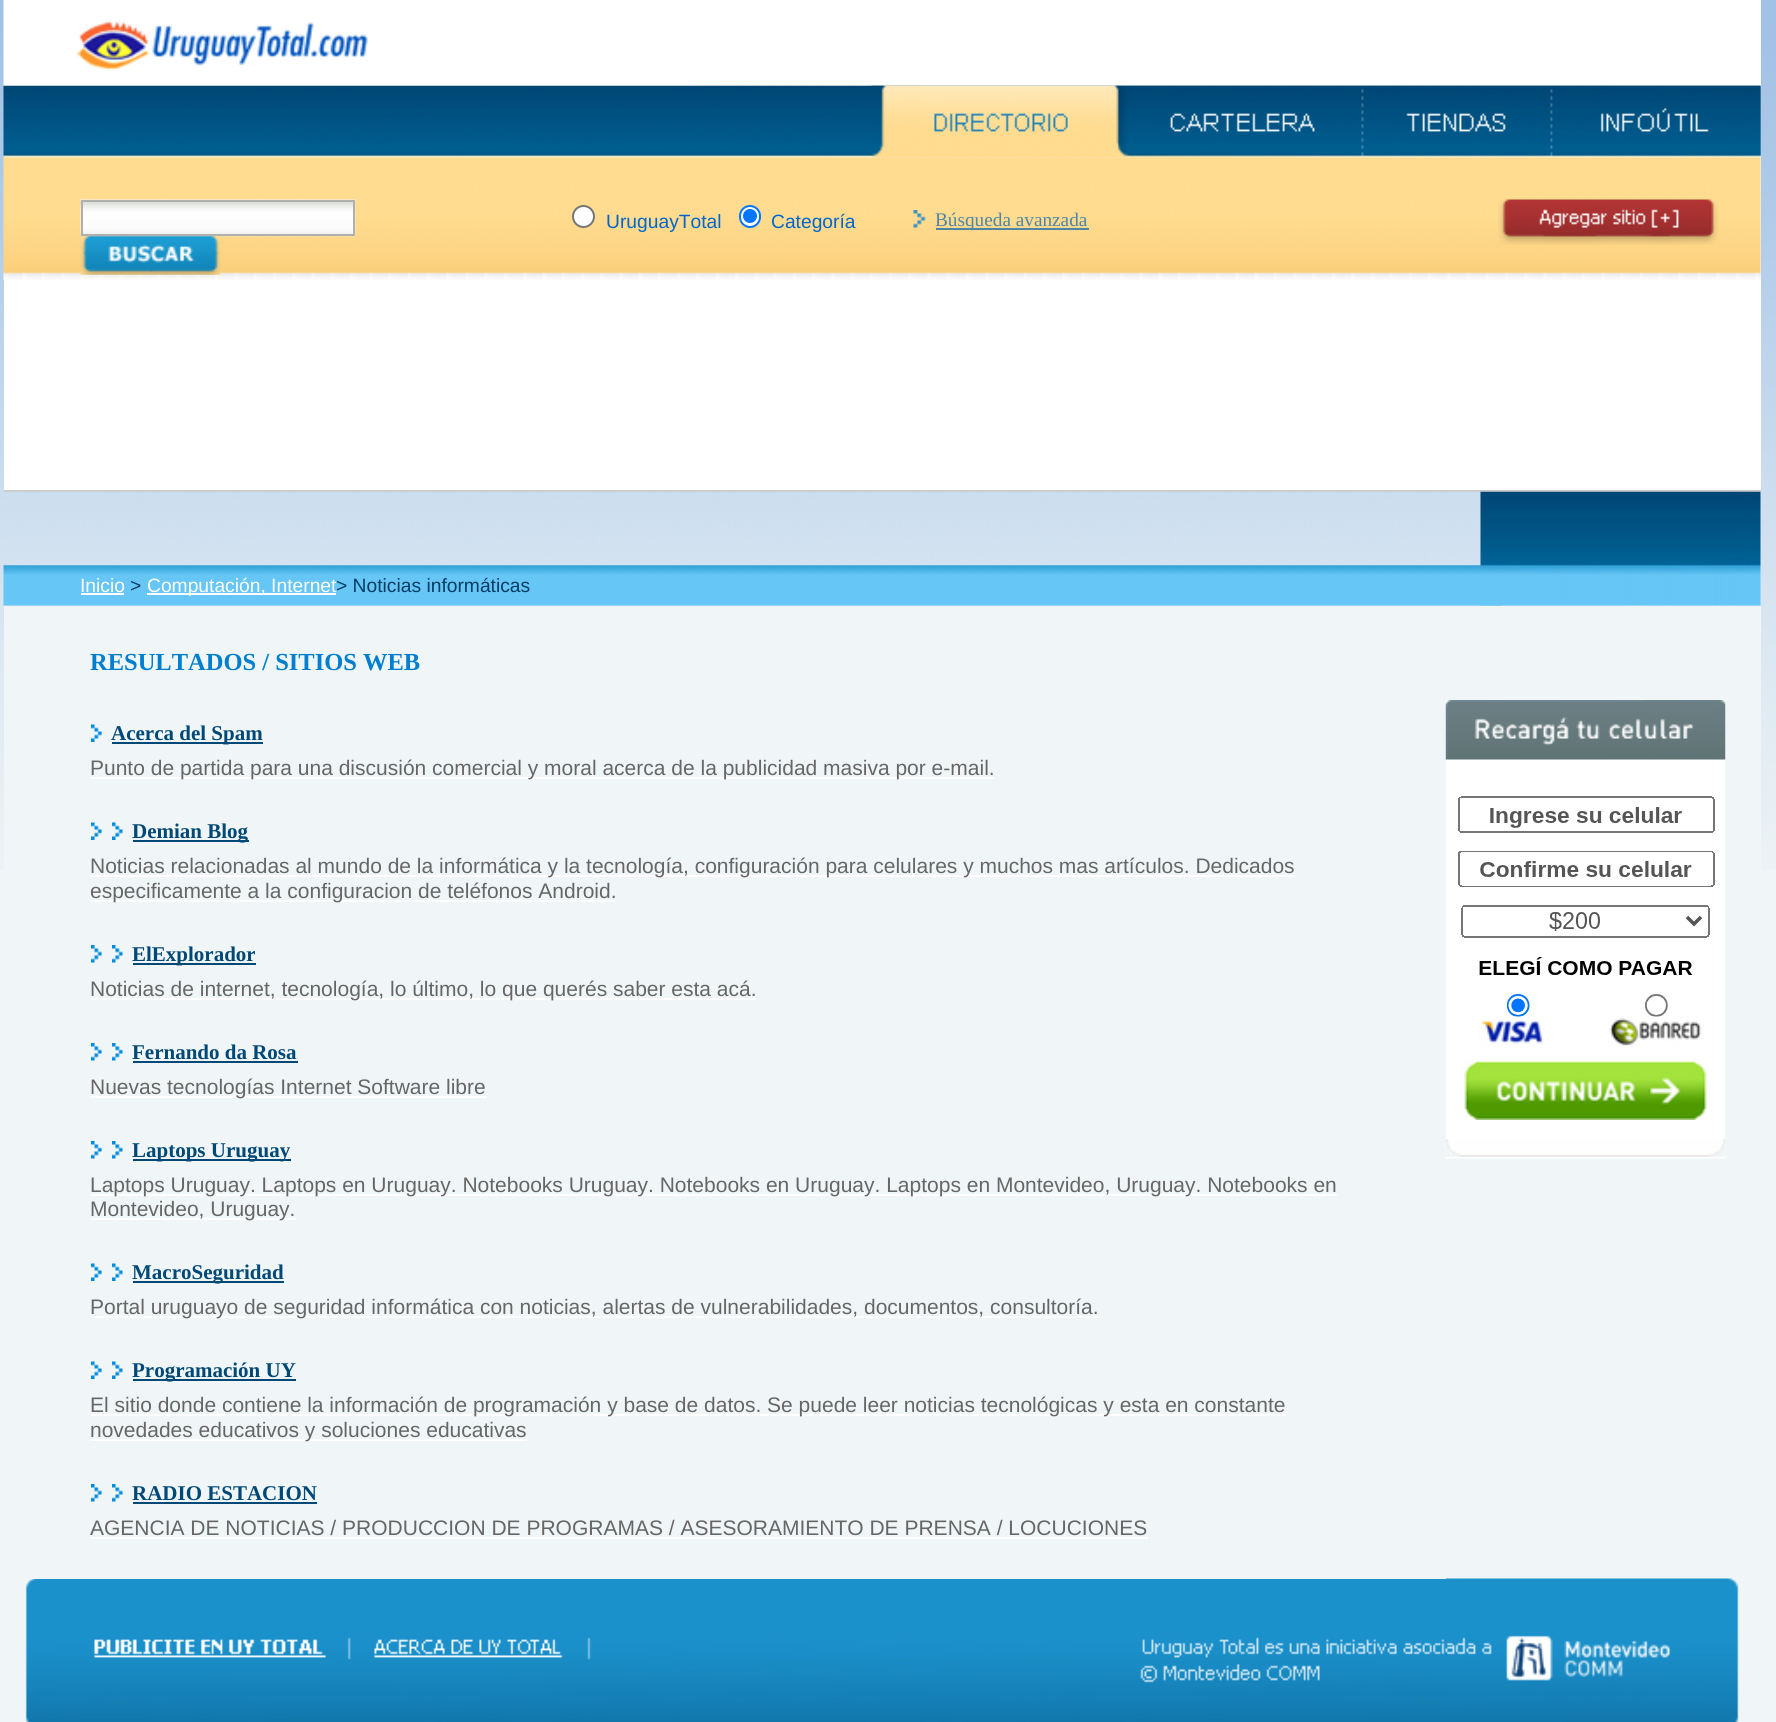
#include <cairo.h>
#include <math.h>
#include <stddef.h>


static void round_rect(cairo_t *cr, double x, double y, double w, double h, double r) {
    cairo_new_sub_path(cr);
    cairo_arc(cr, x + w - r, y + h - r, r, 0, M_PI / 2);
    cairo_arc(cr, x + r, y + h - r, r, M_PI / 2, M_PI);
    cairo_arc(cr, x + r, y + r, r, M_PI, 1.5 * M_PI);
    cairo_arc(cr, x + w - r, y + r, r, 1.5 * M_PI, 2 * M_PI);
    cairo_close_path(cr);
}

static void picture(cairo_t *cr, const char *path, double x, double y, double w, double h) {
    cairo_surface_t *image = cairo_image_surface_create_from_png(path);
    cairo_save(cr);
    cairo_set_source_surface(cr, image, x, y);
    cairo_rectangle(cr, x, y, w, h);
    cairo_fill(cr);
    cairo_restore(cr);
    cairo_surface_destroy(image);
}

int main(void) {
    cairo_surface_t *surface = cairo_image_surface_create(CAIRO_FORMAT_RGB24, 1776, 1722);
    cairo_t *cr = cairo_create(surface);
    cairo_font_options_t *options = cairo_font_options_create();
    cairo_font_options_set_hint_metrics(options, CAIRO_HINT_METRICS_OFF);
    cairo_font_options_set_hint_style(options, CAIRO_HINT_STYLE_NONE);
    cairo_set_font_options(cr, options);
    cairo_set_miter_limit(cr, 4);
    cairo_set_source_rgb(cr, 0.941, 0.961, 0.965);
    cairo_paint(cr);
    picture(cr, "img1.png", 0, 0, 1776, 870);
    cairo_set_source_rgb(cr, 0.941, 0.961, 0.965);
    cairo_rectangle(cr, 4, 0, 1757, 280);
    cairo_fill(cr);
    picture(cr, "img2.png", 3, 0, 1758, 86);
    picture(cr, "img3.png", 3, 85, 1758, 73);
    picture(cr, "img8.png", 3, 157, 1758, 123);
    picture(cr, "img4.png", 871, 85, 258, 73);
    picture(cr, "img5.png", 1128, 85, 234, 73);
    picture(cr, "img6.png", 1361, 85, 190, 73);
    picture(cr, "img7.png", 1550, 85, 211, 73);
    picture(cr, "img9.png", 80, 199, 276, 38);
    cairo_rectangle(cr, 82, 201, 272, 34);
    cairo_set_source_rgb(cr, 0.69, 0.694, 0.682);
    cairo_stroke(cr);
    picture(cr, "img10.png", 80, 236, 141, 39);
    cairo_set_source_rgb(cr, 1, 1, 1);
    cairo_arc(cr, 583.5, 216.5, 10.5, 0, 2 * M_PI);
    cairo_fill_preserve(cr);
    cairo_set_source_rgb(cr, 0.463, 0.463, 0.463);
    cairo_stroke(cr);
    cairo_select_font_face(cr, "Liberation Sans", CAIRO_FONT_SLANT_NORMAL, CAIRO_FONT_WEIGHT_NORMAL);
    cairo_set_font_size(cr, 19.25);
    cairo_set_source_rgb(cr, 0, 0.4, 0.8);
    cairo_move_to(cr, 606, 228);
    cairo_show_text(cr, "UruguayTotal");
    cairo_set_source_rgb(cr, 1, 1, 1);
    round_rect(cr, 740, 206, 20, 21, 10);
    cairo_fill_preserve(cr);
    cairo_set_source_rgb(cr, 0, 0.459, 1);
    cairo_stroke(cr);
    cairo_arc(cr, 750, 216, 7, 0, 2 * M_PI);
    cairo_fill(cr);
    cairo_set_source_rgb(cr, 0, 0.4, 0.8);
    cairo_move_to(cr, 771, 228);
    cairo_show_text(cr, "Categoría");
    picture(cr, "img11.png", 913, 210, 13, 18);
    cairo_set_source_rgb(cr, 0.306, 0.522, 0.647);
    cairo_rectangle(cr, 936, 228, 153, 2);
    cairo_fill(cr);
    cairo_select_font_face(cr, "Liberation Serif", CAIRO_FONT_SLANT_NORMAL, CAIRO_FONT_WEIGHT_NORMAL);
    cairo_move_to(cr, 935, 226);
    cairo_show_text(cr, "Búsqueda avanzada");
    picture(cr, "img12.png", 1498, 199, 221, 46);
    cairo_set_source_rgb(cr, 1, 1, 1);
    cairo_rectangle(cr, 4, 280, 1757, 210);
    cairo_fill(cr);
    cairo_set_source_rgb(cr, 0.8, 0.8, 0.8);
    cairo_rectangle(cr, 4, 490, 1757, 2);
    cairo_fill(cr);
    picture(cr, "img13.png", 3, 565, 1499, 41);
    cairo_select_font_face(cr, "Liberation Sans", CAIRO_FONT_SLANT_NORMAL, CAIRO_FONT_WEIGHT_NORMAL);
    cairo_set_source_rgb(cr, 1, 1, 1);
    cairo_move_to(cr, 80, 592);
    cairo_show_text(cr, "Inicio");
    cairo_rectangle(cr, 81, 593, 43, 2);
    cairo_fill(cr);
    cairo_set_source_rgb(cr, 0.008, 0.239, 0.392);
    cairo_move_to(cr, 130, 592);
    cairo_show_text(cr, ">");
    cairo_set_source_rgb(cr, 1, 1, 1);
    cairo_rectangle(cr, 147, 593, 189, 2);
    cairo_fill(cr);
    cairo_move_to(cr, 147, 592);
    cairo_show_text(cr, "Computación, Internet");
    cairo_set_source_rgb(cr, 0.008, 0.239, 0.392);
    cairo_move_to(cr, 336, 592);
    cairo_show_text(cr, "> Noticias informáticas");
    picture(cr, "img14.png", 1480, 491, 281, 115);
    picture(cr, "img20.png", 25, 1578, 1714, 144);
    cairo_set_source_rgb(cr, 0.941, 0.961, 0.965);
    cairo_rectangle(cr, 4, 606, 1442, 973);
    cairo_fill(cr);
    cairo_select_font_face(cr, "Liberation Serif", CAIRO_FONT_SLANT_NORMAL, CAIRO_FONT_WEIGHT_BOLD);
    cairo_set_font_size(cr, 24.5);
    cairo_set_source_rgb(cr, 0, 0.494, 0.816);
    cairo_move_to(cr, 90, 670);
    cairo_show_text(cr, "RESULTADOS / SITIOS WEB");
    picture(cr, "img15.png", 91, 724, 11, 18);
    cairo_set_source_rgb(cr, 0, 0.282, 0.463);
    cairo_rectangle(cr, 112, 742, 151, 2);
    cairo_fill(cr);
    cairo_set_font_size(cr, 21);
    cairo_move_to(cr, 111, 740);
    cairo_show_text(cr, "Acerca del Spam");
    cairo_set_source_rgb(cr, 1, 1, 1);
    cairo_rectangle(cr, 91, 777, 903, 2);
    cairo_fill(cr);
    cairo_select_font_face(cr, "Liberation Sans", CAIRO_FONT_SLANT_NORMAL, CAIRO_FONT_WEIGHT_NORMAL);
    cairo_set_source_rgb(cr, 0.4, 0.4, 0.4);
    cairo_move_to(cr, 90, 775);
    cairo_show_text(cr, "Punto de partida para una discusión comercial y moral acerca de la publicidad masiva por e-mail.");
    picture(cr, "img15.png", 91, 822, 11, 18);
    picture(cr, "img16.png", 112, 822, 11, 18);
    cairo_set_source_rgb(cr, 0, 0.282, 0.463);
    cairo_rectangle(cr, 133, 840, 116, 2);
    cairo_fill(cr);
    cairo_select_font_face(cr, "Liberation Serif", CAIRO_FONT_SLANT_NORMAL, CAIRO_FONT_WEIGHT_BOLD);
    cairo_move_to(cr, 132, 838);
    cairo_show_text(cr, "Demian Blog");
    cairo_set_source_rgb(cr, 1, 1, 1);
    cairo_rectangle(cr, 91, 875, 1204, 2);
    cairo_fill(cr);
    cairo_select_font_face(cr, "Liberation Sans", CAIRO_FONT_SLANT_NORMAL, CAIRO_FONT_WEIGHT_NORMAL);
    cairo_set_source_rgb(cr, 0.4, 0.4, 0.4);
    cairo_move_to(cr, 90, 873);
    cairo_show_text(cr, "Noticias relacionadas al mundo de la informática y la tecnología, configuración para celulares y muchos mas artículos. Dedicados");
    cairo_set_source_rgb(cr, 1, 1, 1);
    cairo_rectangle(cr, 91, 900, 525, 2);
    cairo_fill(cr);
    cairo_set_source_rgb(cr, 0.4, 0.4, 0.4);
    cairo_move_to(cr, 90, 898);
    cairo_show_text(cr, "especificamente a la configuracion de teléfonos Android.");
    picture(cr, "img17.png", 91, 945, 11, 18);
    picture(cr, "img18.png", 112, 945, 11, 18);
    cairo_set_source_rgb(cr, 0, 0.282, 0.463);
    cairo_rectangle(cr, 133, 963, 123, 2);
    cairo_fill(cr);
    cairo_select_font_face(cr, "Liberation Serif", CAIRO_FONT_SLANT_NORMAL, CAIRO_FONT_WEIGHT_BOLD);
    cairo_move_to(cr, 132, 961);
    cairo_show_text(cr, "ElExplorador");
    cairo_set_source_rgb(cr, 1, 1, 1);
    cairo_rectangle(cr, 91, 998, 665, 2);
    cairo_fill(cr);
    cairo_select_font_face(cr, "Liberation Sans", CAIRO_FONT_SLANT_NORMAL, CAIRO_FONT_WEIGHT_NORMAL);
    cairo_set_source_rgb(cr, 0.4, 0.4, 0.4);
    cairo_move_to(cr, 90, 996);
    cairo_show_text(cr, "Noticias de internet, tecnología, lo último, lo que querés saber esta acá.");
    picture(cr, "img17.png", 91, 1043, 11, 18);
    picture(cr, "img18.png", 112, 1043, 11, 18);
    cairo_select_font_face(cr, "Liberation Serif", CAIRO_FONT_SLANT_NORMAL, CAIRO_FONT_WEIGHT_BOLD);
    cairo_set_source_rgb(cr, 0, 0.282, 0.463);
    cairo_move_to(cr, 132, 1059);
    cairo_show_text(cr, "Fernando da Rosa");
    cairo_rectangle(cr, 133, 1061, 165, 2);
    cairo_fill(cr);
    cairo_set_source_rgb(cr, 1, 1, 1);
    cairo_rectangle(cr, 91, 1096, 396, 2);
    cairo_fill(cr);
    cairo_select_font_face(cr, "Liberation Sans", CAIRO_FONT_SLANT_NORMAL, CAIRO_FONT_WEIGHT_NORMAL);
    cairo_set_source_rgb(cr, 0.4, 0.4, 0.4);
    cairo_move_to(cr, 90, 1094);
    cairo_show_text(cr, "Nuevas tecnologías Internet Software libre");
    picture(cr, "img17.png", 91, 1141, 11, 18);
    picture(cr, "img18.png", 112, 1141, 11, 18);
    cairo_set_source_rgb(cr, 0, 0.282, 0.463);
    cairo_rectangle(cr, 133, 1159, 158, 2);
    cairo_fill(cr);
    cairo_select_font_face(cr, "Liberation Serif", CAIRO_FONT_SLANT_NORMAL, CAIRO_FONT_WEIGHT_BOLD);
    cairo_move_to(cr, 132, 1157);
    cairo_show_text(cr, "Laptops Uruguay");
    cairo_set_source_rgb(cr, 1, 1, 1);
    cairo_rectangle(cr, 91, 1194, 1246, 2);
    cairo_fill(cr);
    cairo_select_font_face(cr, "Liberation Sans", CAIRO_FONT_SLANT_NORMAL, CAIRO_FONT_WEIGHT_NORMAL);
    cairo_set_source_rgb(cr, 0.4, 0.4, 0.4);
    cairo_move_to(cr, 90, 1192);
    cairo_show_text(cr, "Laptops Uruguay. Laptops en Uruguay. Notebooks Uruguay. Notebooks en Uruguay. Laptops en Montevideo, Uruguay. Notebooks en");
    cairo_set_source_rgb(cr, 1, 1, 1);
    cairo_rectangle(cr, 91, 1218, 205, 2);
    cairo_fill(cr);
    cairo_set_source_rgb(cr, 0.4, 0.4, 0.4);
    cairo_move_to(cr, 90, 1216);
    cairo_show_text(cr, "Montevideo, Uruguay.");
    picture(cr, "img15.png", 91, 1263, 11, 18);
    picture(cr, "img16.png", 112, 1263, 11, 18);
    cairo_set_source_rgb(cr, 0, 0.282, 0.463);
    cairo_rectangle(cr, 133, 1281, 151, 2);
    cairo_fill(cr);
    cairo_select_font_face(cr, "Liberation Serif", CAIRO_FONT_SLANT_NORMAL, CAIRO_FONT_WEIGHT_BOLD);
    cairo_move_to(cr, 132, 1279);
    cairo_show_text(cr, "MacroSeguridad");
    cairo_set_source_rgb(cr, 1, 1, 1);
    cairo_rectangle(cr, 91, 1316, 1008, 2);
    cairo_fill(cr);
    cairo_select_font_face(cr, "Liberation Sans", CAIRO_FONT_SLANT_NORMAL, CAIRO_FONT_WEIGHT_NORMAL);
    cairo_set_source_rgb(cr, 0.4, 0.4, 0.4);
    cairo_move_to(cr, 90, 1314);
    cairo_show_text(cr, "Portal uruguayo de seguridad informática con noticias, alertas de vulnerabilidades, documentos, consultoría.");
    picture(cr, "img15.png", 91, 1361, 11, 18);
    picture(cr, "img16.png", 112, 1361, 11, 18);
    cairo_set_source_rgb(cr, 0, 0.282, 0.463);
    cairo_rectangle(cr, 133, 1379, 163, 2);
    cairo_fill(cr);
    cairo_select_font_face(cr, "Liberation Serif", CAIRO_FONT_SLANT_NORMAL, CAIRO_FONT_WEIGHT_BOLD);
    cairo_move_to(cr, 132, 1377);
    cairo_show_text(cr, "Programación UY");
    cairo_set_source_rgb(cr, 1, 1, 1);
    cairo_rectangle(cr, 91, 1414, 1195, 2);
    cairo_fill(cr);
    cairo_select_font_face(cr, "Liberation Sans", CAIRO_FONT_SLANT_NORMAL, CAIRO_FONT_WEIGHT_NORMAL);
    cairo_set_source_rgb(cr, 0.4, 0.4, 0.4);
    cairo_move_to(cr, 90, 1412);
    cairo_show_text(cr, "El sitio donde contiene la información de programación y base de datos. Se puede leer noticias tecnológicas y esta en constante");
    cairo_set_source_rgb(cr, 1, 1, 1);
    cairo_rectangle(cr, 91, 1439, 436, 2);
    cairo_fill(cr);
    cairo_set_source_rgb(cr, 0.4, 0.4, 0.4);
    cairo_move_to(cr, 90, 1437);
    cairo_show_text(cr, "novedades educativos y soluciones educativas");
    picture(cr, "img17.png", 91, 1484, 11, 18);
    picture(cr, "img18.png", 112, 1484, 11, 18);
    cairo_select_font_face(cr, "Liberation Serif", CAIRO_FONT_SLANT_NORMAL, CAIRO_FONT_WEIGHT_BOLD);
    cairo_set_source_rgb(cr, 0, 0.282, 0.463);
    cairo_move_to(cr, 132, 1500);
    cairo_show_text(cr, "RADIO ESTACION");
    cairo_rectangle(cr, 133, 1502, 184, 2);
    cairo_fill(cr);
    cairo_select_font_face(cr, "Liberation Sans", CAIRO_FONT_SLANT_NORMAL, CAIRO_FONT_WEIGHT_NORMAL);
    cairo_set_source_rgb(cr, 0.4, 0.4, 0.4);
    cairo_move_to(cr, 90, 1535);
    cairo_show_text(cr, "AGENCIA DE NOTICIAS / PRODUCCION DE PROGRAMAS / ASESORAMIENTO DE PRENSA / LOCUCIONES");
    cairo_set_source_rgb(cr, 1, 1, 1);
    cairo_rectangle(cr, 91, 1537, 1057, 2);
    cairo_fill(cr);
    cairo_set_source_rgb(cr, 0.941, 0.961, 0.965);
    cairo_rectangle(cr, 1446, 606, 315, 264);
    cairo_fill(cr);
    picture(cr, "img19.png", 1445, 700, 281, 459);
    cairo_surface_write_to_png(surface, "page.png");
    cairo_font_options_destroy(options);
    cairo_destroy(cr);
    cairo_surface_destroy(surface);
    return 0;
}
